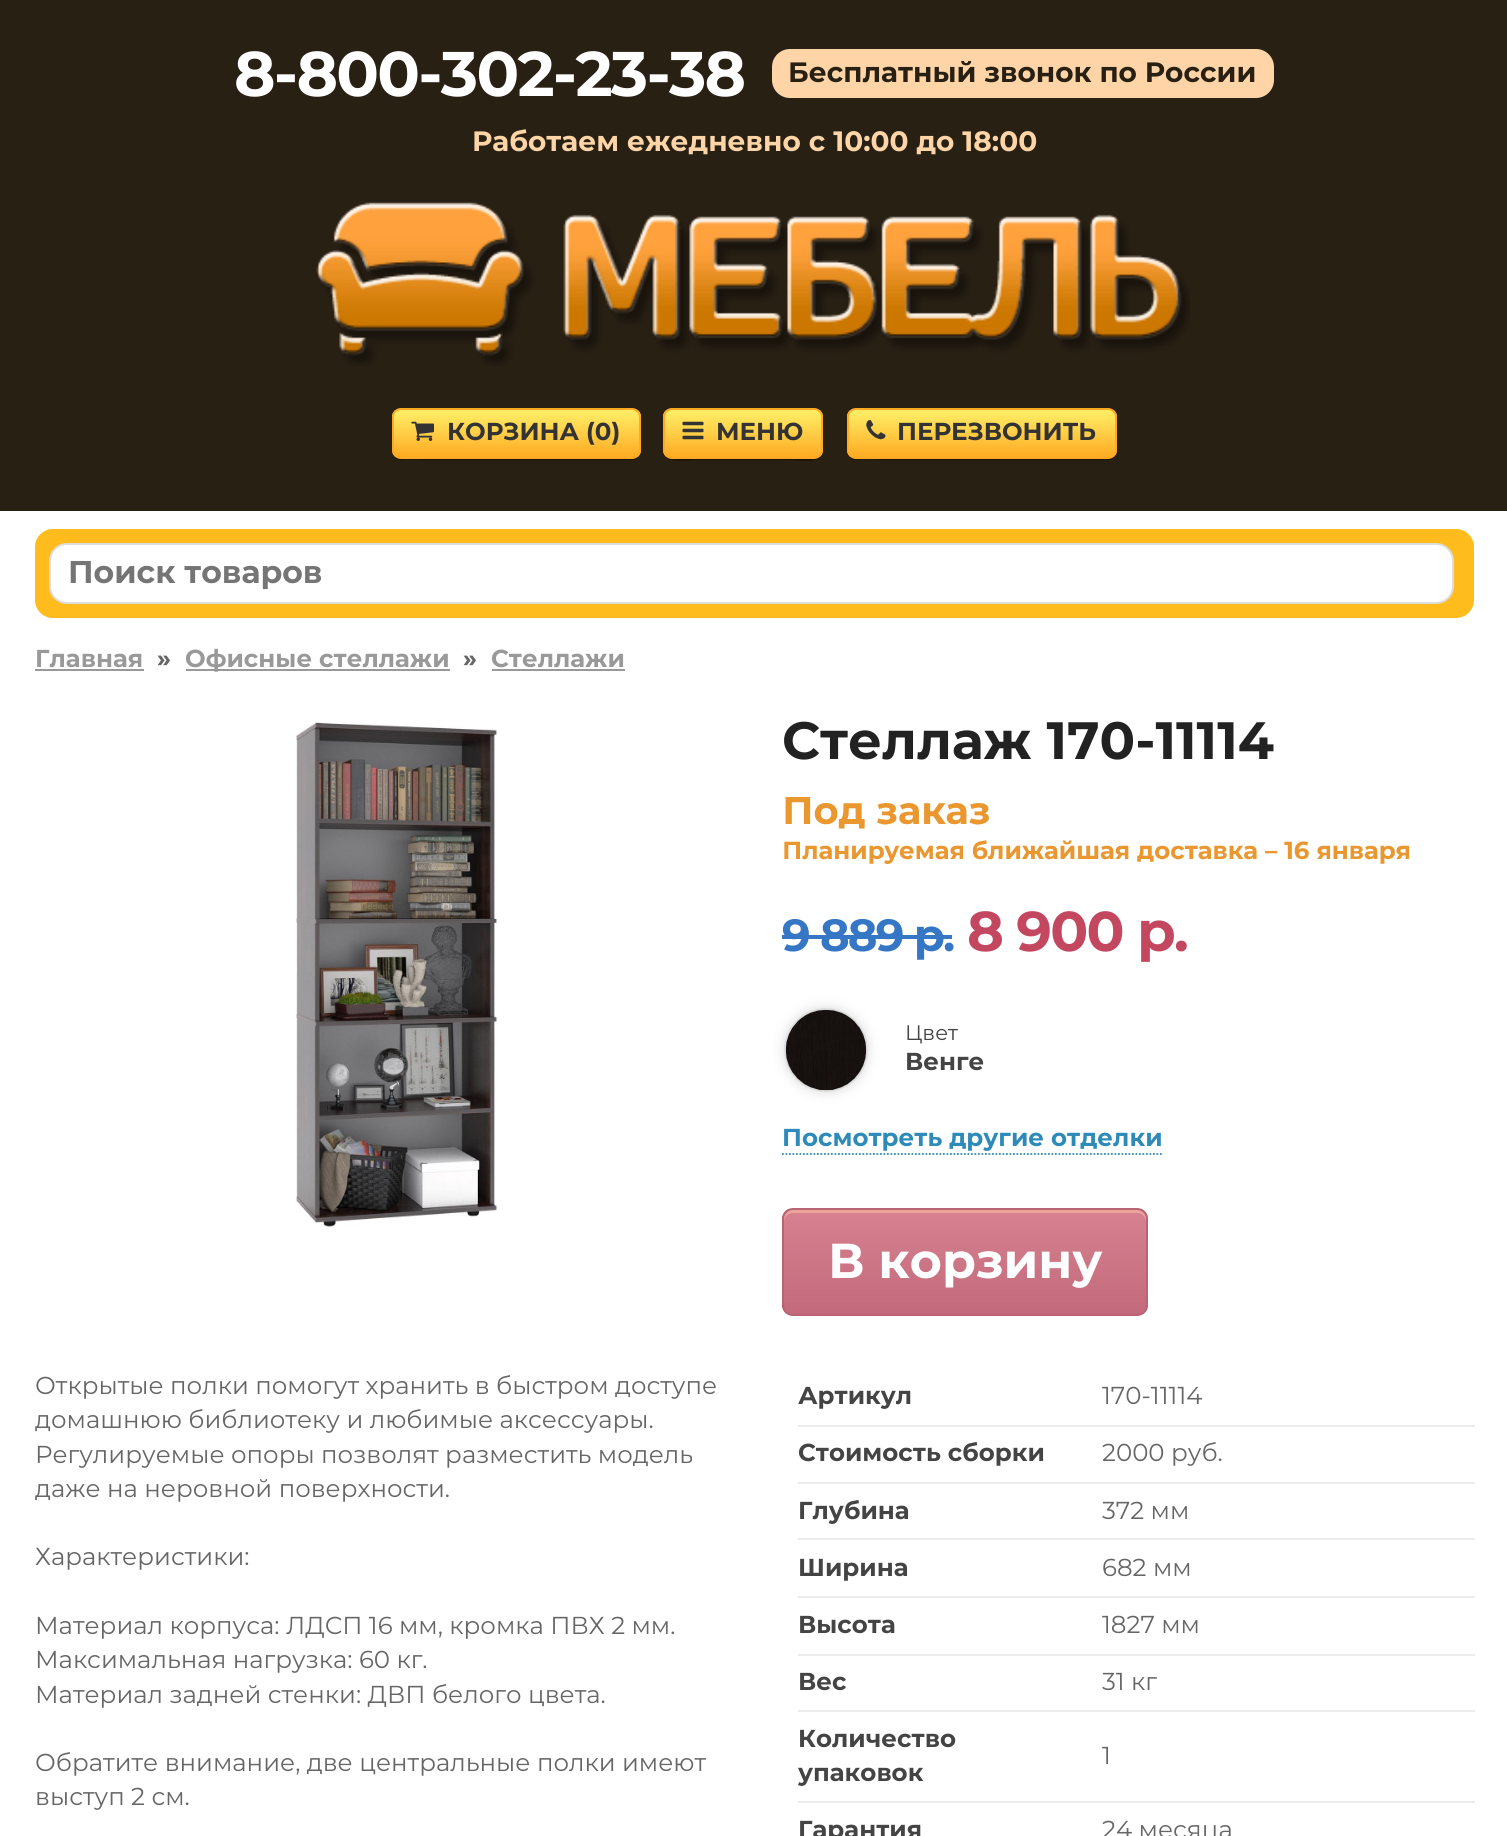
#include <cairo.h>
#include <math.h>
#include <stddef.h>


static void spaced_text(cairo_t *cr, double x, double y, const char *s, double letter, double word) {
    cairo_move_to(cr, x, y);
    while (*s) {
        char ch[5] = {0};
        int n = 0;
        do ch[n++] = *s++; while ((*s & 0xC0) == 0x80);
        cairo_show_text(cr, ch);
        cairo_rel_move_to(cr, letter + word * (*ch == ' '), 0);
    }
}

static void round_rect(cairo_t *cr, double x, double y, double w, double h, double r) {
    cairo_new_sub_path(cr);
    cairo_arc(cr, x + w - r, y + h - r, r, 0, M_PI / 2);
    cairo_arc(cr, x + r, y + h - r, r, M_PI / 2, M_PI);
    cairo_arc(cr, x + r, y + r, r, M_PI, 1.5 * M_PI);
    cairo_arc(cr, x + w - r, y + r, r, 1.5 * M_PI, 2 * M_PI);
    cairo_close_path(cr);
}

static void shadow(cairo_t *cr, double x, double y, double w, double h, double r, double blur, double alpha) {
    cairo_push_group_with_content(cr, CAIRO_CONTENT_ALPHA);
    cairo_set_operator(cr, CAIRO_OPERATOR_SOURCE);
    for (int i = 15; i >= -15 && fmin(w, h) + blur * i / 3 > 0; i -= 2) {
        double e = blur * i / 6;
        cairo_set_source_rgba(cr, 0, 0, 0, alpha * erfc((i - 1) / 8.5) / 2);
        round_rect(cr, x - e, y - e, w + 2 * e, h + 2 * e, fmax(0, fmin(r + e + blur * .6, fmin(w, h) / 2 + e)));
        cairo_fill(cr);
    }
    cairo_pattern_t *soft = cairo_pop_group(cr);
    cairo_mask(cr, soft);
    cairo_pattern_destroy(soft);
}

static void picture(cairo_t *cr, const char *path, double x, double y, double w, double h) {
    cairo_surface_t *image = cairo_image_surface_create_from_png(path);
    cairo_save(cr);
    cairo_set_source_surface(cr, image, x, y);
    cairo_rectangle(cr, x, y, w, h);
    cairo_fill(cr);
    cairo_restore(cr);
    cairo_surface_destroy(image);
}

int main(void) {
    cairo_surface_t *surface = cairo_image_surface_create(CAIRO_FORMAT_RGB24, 1507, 1836);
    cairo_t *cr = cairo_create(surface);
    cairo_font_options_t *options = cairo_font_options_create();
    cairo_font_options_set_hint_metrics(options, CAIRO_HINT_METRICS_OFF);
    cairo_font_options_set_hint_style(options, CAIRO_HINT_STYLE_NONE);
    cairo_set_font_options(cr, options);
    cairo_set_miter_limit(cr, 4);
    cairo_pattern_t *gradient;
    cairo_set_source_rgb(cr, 1, 1, 1);
    cairo_paint(cr);
    cairo_set_source_rgb(cr, 0.161, 0.125, 0.082);
    cairo_rectangle(cr, 0, 0, 1507, 511);
    cairo_fill(cr);
    cairo_select_font_face(cr, "Montserrat", CAIRO_FONT_SLANT_NORMAL, CAIRO_FONT_WEIGHT_BOLD);
    cairo_set_font_size(cr, 63);
    cairo_set_source_rgb(cr, 1, 1, 1);
    spaced_text(cr, 234, 96, "8-800-302-23-38", -1.75, 0);
    cairo_set_source_rgb(cr, 1, 0.835, 0.659);
    round_rect(cr, 772, 49, 502, 49, 18);
    cairo_fill(cr);
    cairo_set_font_size(cr, 28);
    cairo_set_source_rgb(cr, 0.161, 0.125, 0.082);
    cairo_move_to(cr, 788, 82);
    cairo_show_text(cr, "Бесплатный звонок по России");
    cairo_set_source_rgb(cr, 1, 0.835, 0.659);
    cairo_move_to(cr, 472, 151);
    cairo_show_text(cr, "Работаем ежедневно с 10:00 до 18:00");
    picture(cr, "img1.png", 316, 202, 874, 164);
    cairo_set_source_rgb(cr, 0.114, 0.078, 0.031);
    cairo_new_path(cr);
    cairo_move_to(cr, 392, 450);
    cairo_line_to(cr, 392, 451);
    cairo_curve_to(cr, 392, 456, 396, 460, 401, 460);
    cairo_line_to(cr, 632, 460);
    cairo_curve_to(cr, 637, 460, 641, 456, 641, 451);
    cairo_line_to(cr, 641, 419);
    cairo_line_to(cr, 640, 416);
    cairo_line_to(cr, 640, 439);
    cairo_curve_to(cr, 640, 446, 643, 458, 632, 458);
    cairo_line_to(cr, 439, 458);
    cairo_curve_to(cr, 422, 458, 392, 465, 392, 450);
    cairo_close_path(cr);
    cairo_fill(cr);
    cairo_save(cr);
    round_rect(cr, 392, 408, 249, 51, 9);
    cairo_clip(cr);
    gradient = cairo_pattern_create_linear(516, 410, 516, 457);
    cairo_pattern_add_color_stop_rgba(gradient, 0.05, 1, 0.925, 0.392, 1);
    cairo_pattern_add_color_stop_rgba(gradient, 1, 1, 0.671, 0.137, 1);
    cairo_set_source(cr, gradient);
    cairo_pattern_destroy(gradient);
    cairo_rectangle(cr, 392, 410, 249, 47);
    cairo_fill(cr);
    cairo_restore(cr);
    round_rect(cr, 393, 409, 247, 49, 8);
    cairo_set_source_rgb(cr, 1, 0.667, 0.133);
    cairo_stroke(cr);
    picture(cr, "img2.png", 411, 421, 23, 20);
    cairo_set_font_size(cr, 24.5);
    cairo_set_source_rgb(cr, 0.2, 0.2, 0.2);
    cairo_move_to(cr, 447, 440);
    cairo_show_text(cr, "КОРЗИНА (0)");
    cairo_set_source_rgb(cr, 0.114, 0.078, 0.031);
    cairo_new_path(cr);
    cairo_move_to(cr, 663, 417);
    cairo_line_to(cr, 663, 453);
    cairo_curve_to(cr, 666, 465, 691, 460, 696, 460);
    cairo_line_to(cr, 790, 460);
    cairo_curve_to(cr, 795, 460, 820, 465, 823, 453);
    cairo_line_to(cr, 823, 424);
    cairo_line_to(cr, 822, 416);
    cairo_line_to(cr, 822, 450);
    cairo_curve_to(cr, 822, 455, 819, 458, 814, 458);
    cairo_line_to(cr, 672, 458);
    cairo_curve_to(cr, 667, 458, 663, 455, 663, 450);
    cairo_close_path(cr);
    cairo_fill(cr);
    cairo_save(cr);
    round_rect(cr, 663, 408, 160, 51, 9);
    cairo_clip(cr);
    gradient = cairo_pattern_create_linear(743, 410, 743, 457);
    cairo_pattern_add_color_stop_rgba(gradient, 0.05, 1, 0.925, 0.392, 1);
    cairo_pattern_add_color_stop_rgba(gradient, 1, 1, 0.671, 0.137, 1);
    cairo_set_source(cr, gradient);
    cairo_pattern_destroy(gradient);
    cairo_rectangle(cr, 663, 410, 160, 47);
    cairo_fill(cr);
    cairo_restore(cr);
    round_rect(cr, 664, 409, 158, 49, 8);
    cairo_set_source_rgb(cr, 1, 0.667, 0.133);
    cairo_stroke(cr);
    picture(cr, "img3.png", 682, 421, 22, 19);
    cairo_set_source_rgb(cr, 0.2, 0.2, 0.2);
    cairo_move_to(cr, 716, 440);
    cairo_show_text(cr, "МЕНЮ");
    cairo_set_source_rgb(cr, 0.114, 0.078, 0.031);
    cairo_new_path(cr);
    cairo_move_to(cr, 847, 450);
    cairo_line_to(cr, 847, 451);
    cairo_curve_to(cr, 847, 456, 851, 460, 856, 460);
    cairo_line_to(cr, 1108, 460);
    cairo_curve_to(cr, 1113, 460, 1117, 456, 1117, 451);
    cairo_line_to(cr, 1117, 419);
    cairo_line_to(cr, 1116, 416);
    cairo_line_to(cr, 1116, 439);
    cairo_curve_to(cr, 1116, 446, 1119, 458, 1108, 458);
    cairo_line_to(cr, 898, 458);
    cairo_curve_to(cr, 880, 458, 847, 465, 847, 450);
    cairo_close_path(cr);
    cairo_fill(cr);
    cairo_save(cr);
    round_rect(cr, 847, 408, 270, 51, 9);
    cairo_clip(cr);
    gradient = cairo_pattern_create_linear(982, 410, 982, 457);
    cairo_pattern_add_color_stop_rgba(gradient, 0.05, 1, 0.925, 0.392, 1);
    cairo_pattern_add_color_stop_rgba(gradient, 1, 1, 0.671, 0.137, 1);
    cairo_set_source(cr, gradient);
    cairo_pattern_destroy(gradient);
    cairo_rectangle(cr, 847, 410, 270, 47);
    cairo_fill(cr);
    cairo_restore(cr);
    round_rect(cr, 848, 409, 268, 49, 8);
    cairo_set_source_rgb(cr, 1, 0.667, 0.133);
    cairo_stroke(cr);
    picture(cr, "img4.png", 866, 420, 20, 20);
    cairo_set_source_rgb(cr, 0.2, 0.2, 0.2);
    cairo_move_to(cr, 897, 440);
    cairo_show_text(cr, "ПЕРЕЗВОНИТЬ");
    cairo_set_source_rgb(cr, 1, 0.737, 0.11);
    round_rect(cr, 35, 529, 1439, 89, 18);
    cairo_fill(cr);
    cairo_set_source_rgb(cr, 1, 1, 1);
    round_rect(cr, 50, 544, 1403, 59, 17);
    cairo_fill_preserve(cr);
    cairo_set_source_rgb(cr, 0.867, 0.867, 0.867);
    cairo_stroke(cr);
    cairo_set_font_size(cr, 31.5);
    cairo_set_source_rgb(cr, 0.459, 0.459, 0.459);
    cairo_move_to(cr, 68, 583);
    cairo_show_text(cr, "Поиск товаров");
    cairo_set_font_size(cr, 24.5);
    cairo_set_source_rgb(cr, 0.6, 0.6, 0.6);
    cairo_move_to(cr, 35, 667);
    cairo_show_text(cr, "Главная");
    cairo_rectangle(cr, 35, 669, 109, 2);
    cairo_fill(cr);
    cairo_set_source_rgb(cr, 0.4, 0.4, 0.4);
    cairo_move_to(cr, 157, 667);
    cairo_show_text(cr, "»");
    cairo_set_source_rgb(cr, 0.6, 0.6, 0.6);
    cairo_rectangle(cr, 186, 669, 264, 2);
    cairo_fill(cr);
    cairo_move_to(cr, 185, 667);
    cairo_show_text(cr, "Офисные стеллажи");
    cairo_set_source_rgb(cr, 0.4, 0.4, 0.4);
    cairo_move_to(cr, 463, 667);
    cairo_show_text(cr, "»");
    cairo_set_source_rgb(cr, 0.6, 0.6, 0.6);
    cairo_move_to(cr, 491, 667);
    cairo_show_text(cr, "Стеллажи");
    cairo_rectangle(cr, 492, 669, 133, 2);
    cairo_fill(cr);
    picture(cr, "img5.png", 296, 722, 202, 505);
    cairo_set_font_size(cr, 52.5);
    cairo_set_source_rgb(cr, 0.133, 0.133, 0.133);
    cairo_move_to(cr, 782, 759);
    cairo_show_text(cr, "Стеллаж 170-11114");
    picture(cr, "img6.png", 784, 797, 626, 67);
    cairo_set_font_size(cr, 45);
    cairo_set_source_rgb(cr, 0.208, 0.463, 0.773);
    spaced_text(cr, 782, 951, "9 889 р.", -1.75, 0);
    cairo_rectangle(cr, 782, 935, 170, 4);
    cairo_fill(cr);
    cairo_set_font_size(cr, 56);
    cairo_set_source_rgb(cr, 0.765, 0.282, 0.373);
    spaced_text(cr, 967, 951, "8 900 р.", -1.75, 0);
    cairo_set_source_rgb(cr, 0.867, 0.867, 0.867);
    shadow(cr, 784, 1008, 84, 84, 42, 6, 1);
    cairo_arc(cr, 826, 1050, 41, 0, 2 * M_PI);
    cairo_set_source_rgb(cr, 0.867, 0.867, 0.867);
    cairo_stroke(cr);
    picture(cr, "img7.png", 785, 1009, 82, 82);
    cairo_select_font_face(cr, "Montserrat", CAIRO_FONT_SLANT_NORMAL, CAIRO_FONT_WEIGHT_NORMAL);
    cairo_set_font_size(cr, 21);
    cairo_set_source_rgb(cr, 0.267, 0.267, 0.267);
    cairo_move_to(cr, 905, 1040);
    cairo_show_text(cr, "Цвет");
    cairo_select_font_face(cr, "Montserrat", CAIRO_FONT_SLANT_NORMAL, CAIRO_FONT_WEIGHT_BOLD);
    cairo_set_font_size(cr, 24.5);
    cairo_move_to(cr, 905, 1070);
    cairo_show_text(cr, "Венге");
    cairo_set_source_rgb(cr, 0.18, 0.545, 0.725);
    cairo_move_to(cr, 782, 1146);
    cairo_show_text(cr, "Посмотреть другие отделки");
    cairo_new_path(cr);
    cairo_move_to(cr, 782, 1154);
    cairo_line_to(cr, 1162, 1154);
    cairo_set_line_width(cr, 1.8);
    cairo_set_dash(cr, (double[]){1.75, 1.75}, 2, 0);
    cairo_stroke(cr);
    cairo_save(cr);
    round_rect(cr, 782, 1208, 366, 108, 11);
    cairo_clip(cr);
    gradient = cairo_pattern_create_linear(965, 1209, 965, 1314);
    cairo_pattern_add_color_stop_rgba(gradient, 0.05, 0.839, 0.502, 0.565, 1);
    cairo_pattern_add_color_stop_rgba(gradient, 1, 0.761, 0.416, 0.482, 1);
    cairo_set_source(cr, gradient);
    cairo_pattern_destroy(gradient);
    cairo_rectangle(cr, 782, 1209, 366, 105);
    cairo_fill(cr);
    cairo_restore(cr);
    cairo_set_source_rgb(cr, 0.925, 0.639, 0.612);
    cairo_new_path(cr);
    cairo_move_to(cr, 793, 1213);
    cairo_line_to(cr, 1138, 1213);
    cairo_curve_to(cr, 1142, 1213, 1146, 1217, 1146, 1222);
    cairo_line_to(cr, 1146, 1218);
    cairo_curve_to(cr, 1146, 1213, 1142, 1209, 1137, 1209);
    cairo_line_to(cr, 793, 1209);
    cairo_curve_to(cr, 788, 1209, 784, 1213, 784, 1218);
    cairo_line_to(cr, 784, 1222);
    cairo_curve_to(cr, 784, 1217, 788, 1213, 793, 1213);
    cairo_close_path(cr);
    cairo_fill(cr);
    round_rect(cr, 783, 1209, 364, 106, 10);
    cairo_set_source_rgb(cr, 0.725, 0.388, 0.451);
    cairo_set_line_width(cr, 2);
    cairo_set_dash(cr, NULL, 0, 0);
    cairo_stroke(cr);
    cairo_set_font_size(cr, 49);
    cairo_set_source_rgb(cr, 1, 1, 1);
    cairo_move_to(cr, 828, 1278);
    cairo_show_text(cr, "В корзину");
    cairo_select_font_face(cr, "Montserrat", CAIRO_FONT_SLANT_NORMAL, CAIRO_FONT_WEIGHT_NORMAL);
    cairo_set_font_size(cr, 24.5);
    cairo_set_source_rgb(cr, 0.4, 0.4, 0.4);
    cairo_move_to(cr, 35, 1394);
    cairo_show_text(cr, "Открытые полки помогут хранить в быстром доступе");
    cairo_move_to(cr, 35, 1428);
    cairo_show_text(cr, "домашнюю библиотеку и любимые аксессуары.");
    cairo_move_to(cr, 35, 1463);
    cairo_show_text(cr, "Регулируемые опоры позволят разместить модель");
    cairo_move_to(cr, 35, 1497);
    cairo_show_text(cr, "даже на неровной поверхности.");
    cairo_move_to(cr, 35, 1565);
    cairo_show_text(cr, "Характеристики:");
    cairo_move_to(cr, 35, 1634);
    cairo_show_text(cr, "Материал корпуса: ЛДСП 16 мм, кромка ПВХ 2 мм.");
    cairo_move_to(cr, 35, 1668);
    cairo_show_text(cr, "Максимальная нагрузка: 60 кг.");
    cairo_move_to(cr, 35, 1703);
    cairo_show_text(cr, "Материал задней стенки: ДВП белого цвета.");
    cairo_move_to(cr, 35, 1771);
    cairo_show_text(cr, "Обратите внимание, две центральные полки имеют");
    cairo_move_to(cr, 35, 1805);
    cairo_show_text(cr, "выступ 2 см.");
    cairo_select_font_face(cr, "Montserrat", CAIRO_FONT_SLANT_NORMAL, CAIRO_FONT_WEIGHT_BOLD);
    cairo_set_source_rgb(cr, 0.267, 0.267, 0.267);
    cairo_move_to(cr, 798, 1404);
    cairo_show_text(cr, "Артикул");
    cairo_set_source_rgb(cr, 0.925, 0.925, 0.925);
    cairo_rectangle(cr, 798, 1425, 677, 2);
    cairo_fill(cr);
    cairo_select_font_face(cr, "Montserrat", CAIRO_FONT_SLANT_NORMAL, CAIRO_FONT_WEIGHT_NORMAL);
    cairo_set_source_rgb(cr, 0.4, 0.4, 0.4);
    cairo_move_to(cr, 1102, 1404);
    cairo_show_text(cr, "170-11114");
    cairo_select_font_face(cr, "Montserrat", CAIRO_FONT_SLANT_NORMAL, CAIRO_FONT_WEIGHT_BOLD);
    cairo_set_source_rgb(cr, 0.267, 0.267, 0.267);
    cairo_move_to(cr, 798, 1461);
    cairo_show_text(cr, "Стоимость сборки");
    cairo_set_source_rgb(cr, 0.925, 0.925, 0.925);
    cairo_rectangle(cr, 798, 1482, 677, 2);
    cairo_fill(cr);
    cairo_select_font_face(cr, "Montserrat", CAIRO_FONT_SLANT_NORMAL, CAIRO_FONT_WEIGHT_NORMAL);
    cairo_set_source_rgb(cr, 0.4, 0.4, 0.4);
    cairo_move_to(cr, 1102, 1461);
    cairo_show_text(cr, "2000 руб.");
    cairo_select_font_face(cr, "Montserrat", CAIRO_FONT_SLANT_NORMAL, CAIRO_FONT_WEIGHT_BOLD);
    cairo_set_source_rgb(cr, 0.267, 0.267, 0.267);
    cairo_move_to(cr, 798, 1519);
    cairo_show_text(cr, "Глубина");
    cairo_set_source_rgb(cr, 0.925, 0.925, 0.925);
    cairo_rectangle(cr, 798, 1538, 677, 2);
    cairo_fill(cr);
    cairo_select_font_face(cr, "Montserrat", CAIRO_FONT_SLANT_NORMAL, CAIRO_FONT_WEIGHT_NORMAL);
    cairo_set_source_rgb(cr, 0.4, 0.4, 0.4);
    cairo_move_to(cr, 1102, 1519);
    cairo_show_text(cr, "372 мм");
    cairo_select_font_face(cr, "Montserrat", CAIRO_FONT_SLANT_NORMAL, CAIRO_FONT_WEIGHT_BOLD);
    cairo_set_source_rgb(cr, 0.267, 0.267, 0.267);
    cairo_move_to(cr, 798, 1576);
    cairo_show_text(cr, "Ширина");
    cairo_set_source_rgb(cr, 0.925, 0.925, 0.925);
    cairo_rectangle(cr, 798, 1596, 677, 2);
    cairo_fill(cr);
    cairo_select_font_face(cr, "Montserrat", CAIRO_FONT_SLANT_NORMAL, CAIRO_FONT_WEIGHT_NORMAL);
    cairo_set_source_rgb(cr, 0.4, 0.4, 0.4);
    cairo_move_to(cr, 1102, 1576);
    cairo_show_text(cr, "682 мм");
    cairo_select_font_face(cr, "Montserrat", CAIRO_FONT_SLANT_NORMAL, CAIRO_FONT_WEIGHT_BOLD);
    cairo_set_source_rgb(cr, 0.267, 0.267, 0.267);
    cairo_move_to(cr, 798, 1633);
    cairo_show_text(cr, "Высота");
    cairo_set_source_rgb(cr, 0.925, 0.925, 0.925);
    cairo_rectangle(cr, 798, 1654, 677, 2);
    cairo_fill(cr);
    cairo_select_font_face(cr, "Montserrat", CAIRO_FONT_SLANT_NORMAL, CAIRO_FONT_WEIGHT_NORMAL);
    cairo_set_source_rgb(cr, 0.4, 0.4, 0.4);
    cairo_move_to(cr, 1102, 1633);
    cairo_show_text(cr, "1827 мм");
    cairo_select_font_face(cr, "Montserrat", CAIRO_FONT_SLANT_NORMAL, CAIRO_FONT_WEIGHT_BOLD);
    cairo_set_source_rgb(cr, 0.267, 0.267, 0.267);
    cairo_move_to(cr, 798, 1690);
    cairo_show_text(cr, "Вес");
    cairo_set_source_rgb(cr, 0.925, 0.925, 0.925);
    cairo_rectangle(cr, 798, 1710, 677, 2);
    cairo_fill(cr);
    cairo_select_font_face(cr, "Montserrat", CAIRO_FONT_SLANT_NORMAL, CAIRO_FONT_WEIGHT_NORMAL);
    cairo_set_source_rgb(cr, 0.4, 0.4, 0.4);
    cairo_move_to(cr, 1102, 1690);
    cairo_show_text(cr, "31 кг");
    cairo_select_font_face(cr, "Montserrat", CAIRO_FONT_SLANT_NORMAL, CAIRO_FONT_WEIGHT_BOLD);
    cairo_set_source_rgb(cr, 0.267, 0.267, 0.267);
    cairo_move_to(cr, 798, 1747);
    cairo_show_text(cr, "Количество");
    cairo_move_to(cr, 798, 1781);
    cairo_show_text(cr, "упаковок");
    cairo_set_source_rgb(cr, 0.925, 0.925, 0.925);
    cairo_rectangle(cr, 798, 1801, 677, 2);
    cairo_fill(cr);
    cairo_select_font_face(cr, "Montserrat", CAIRO_FONT_SLANT_NORMAL, CAIRO_FONT_WEIGHT_NORMAL);
    cairo_set_source_rgb(cr, 0.4, 0.4, 0.4);
    cairo_move_to(cr, 1102, 1764);
    cairo_show_text(cr, "1");
    cairo_select_font_face(cr, "Montserrat", CAIRO_FONT_SLANT_NORMAL, CAIRO_FONT_WEIGHT_BOLD);
    cairo_set_source_rgb(cr, 0.267, 0.267, 0.267);
    cairo_move_to(cr, 798, 1838);
    cairo_show_text(cr, "Гарантия");
    cairo_select_font_face(cr, "Montserrat", CAIRO_FONT_SLANT_NORMAL, CAIRO_FONT_WEIGHT_NORMAL);
    cairo_set_source_rgb(cr, 0.4, 0.4, 0.4);
    cairo_move_to(cr, 1102, 1838);
    cairo_show_text(cr, "24 месяца");
    cairo_surface_write_to_png(surface, "page.png");
    cairo_font_options_destroy(options);
    cairo_destroy(cr);
    cairo_surface_destroy(surface);
    return 0;
}
